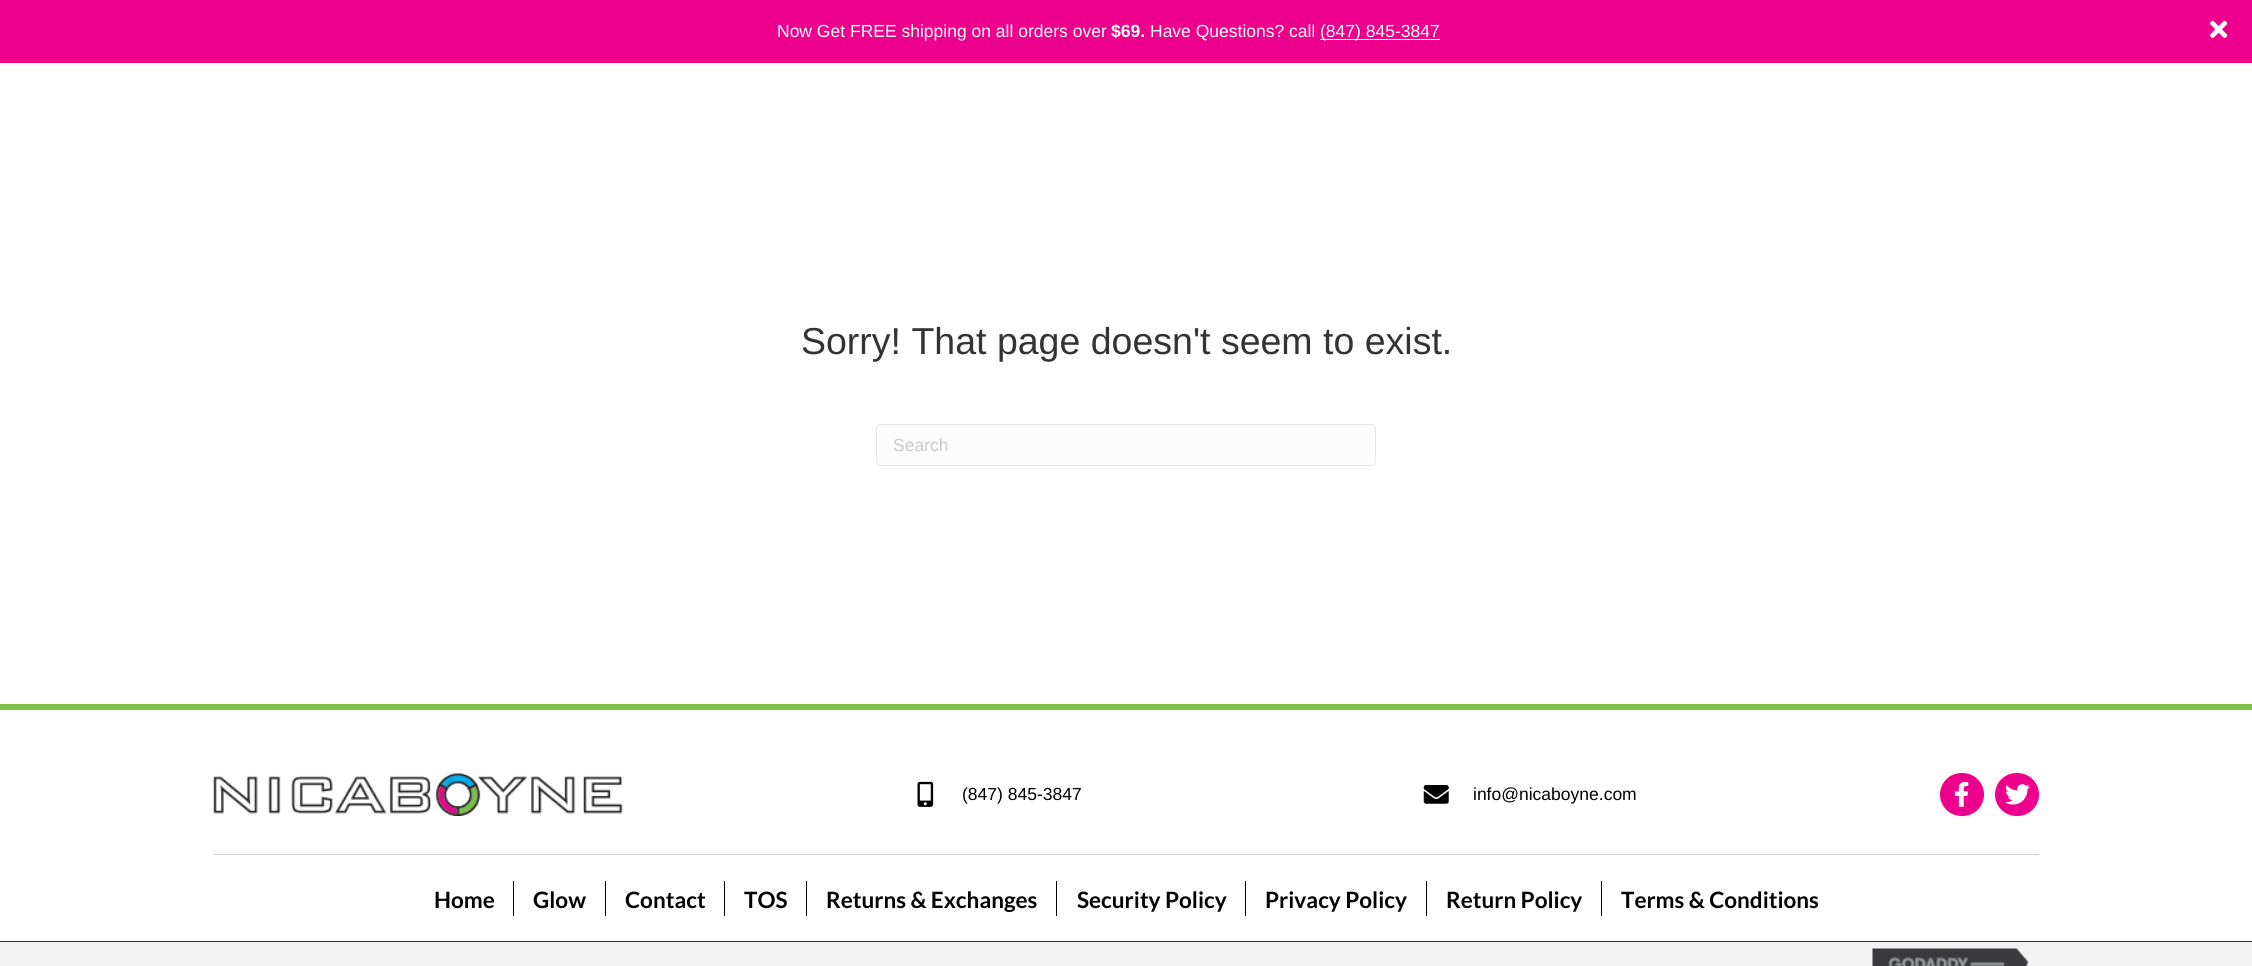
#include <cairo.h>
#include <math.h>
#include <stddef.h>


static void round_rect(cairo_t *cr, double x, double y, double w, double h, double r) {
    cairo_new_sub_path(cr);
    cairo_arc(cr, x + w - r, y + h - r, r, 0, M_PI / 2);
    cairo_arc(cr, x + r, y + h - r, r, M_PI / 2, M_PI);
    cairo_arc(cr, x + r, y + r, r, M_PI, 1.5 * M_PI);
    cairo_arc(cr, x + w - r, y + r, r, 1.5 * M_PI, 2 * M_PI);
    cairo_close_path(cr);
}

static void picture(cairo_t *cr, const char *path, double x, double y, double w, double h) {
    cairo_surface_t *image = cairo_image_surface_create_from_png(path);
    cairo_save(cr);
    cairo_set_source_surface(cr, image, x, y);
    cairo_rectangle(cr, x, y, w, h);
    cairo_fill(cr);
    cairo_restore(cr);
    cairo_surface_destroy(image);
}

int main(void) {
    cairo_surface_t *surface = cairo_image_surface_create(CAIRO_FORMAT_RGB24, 2252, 966);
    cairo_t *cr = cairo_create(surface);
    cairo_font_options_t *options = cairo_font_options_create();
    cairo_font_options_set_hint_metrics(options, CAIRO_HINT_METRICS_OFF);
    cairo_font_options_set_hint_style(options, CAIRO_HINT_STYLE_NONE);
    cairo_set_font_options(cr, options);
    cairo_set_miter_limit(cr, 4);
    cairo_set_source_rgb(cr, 0.949, 0.949, 0.949);
    cairo_paint(cr);
    cairo_set_source_rgb(cr, 0.925, 0, 0.549);
    cairo_rectangle(cr, 0, 0, 2252, 63);
    cairo_fill(cr);
    cairo_select_font_face(cr, "Liberation Sans", CAIRO_FONT_SLANT_NORMAL, CAIRO_FONT_WEIGHT_NORMAL);
    cairo_set_font_size(cr, 17.5);
    cairo_set_source_rgb(cr, 1, 1, 1);
    cairo_move_to(cr, 777, 37);
    cairo_show_text(cr, "Now Get FREE shipping on all orders over");
    cairo_select_font_face(cr, "Liberation Sans", CAIRO_FONT_SLANT_NORMAL, CAIRO_FONT_WEIGHT_BOLD);
    cairo_move_to(cr, 1111, 37);
    cairo_show_text(cr, "$69.");
    cairo_select_font_face(cr, "Liberation Sans", CAIRO_FONT_SLANT_NORMAL, CAIRO_FONT_WEIGHT_NORMAL);
    cairo_move_to(cr, 1150, 37);
    cairo_show_text(cr, "Have Questions? call");
    cairo_rectangle(cr, 1320, 39, 120, 1);
    cairo_fill(cr);
    cairo_move_to(cr, 1320, 37);
    cairo_show_text(cr, "(847) 845-3847");
    picture(cr, "img1.png", 2210, 20, 18, 18);
    cairo_rectangle(cr, 0, 63, 2252, 641);
    cairo_fill(cr);
    cairo_set_font_size(cr, 37.5);
    cairo_set_source_rgb(cr, 0.2, 0.2, 0.2);
    cairo_move_to(cr, 801, 354);
    cairo_show_text(cr, "Sorry! That page doesn't seem to exist.");
    cairo_set_source_rgb(cr, 0.988, 0.988, 0.988);
    round_rect(cr, 876.5, 424.5, 499, 41, 4.5);
    cairo_fill_preserve(cr);
    cairo_set_source_rgb(cr, 0.902, 0.902, 0.902);
    cairo_set_line_width(cr, 1);
    cairo_stroke(cr);
    cairo_set_font_size(cr, 17.5);
    cairo_set_source_rgb(cr, 0.792, 0.792, 0.792);
    cairo_move_to(cr, 893, 451);
    cairo_show_text(cr, "Search");
    cairo_set_source_rgb(cr, 1, 1, 1);
    cairo_rectangle(cr, 0, 710, 2252, 231);
    cairo_fill(cr);
    cairo_set_source_rgb(cr, 0.482, 0.757, 0.263);
    cairo_rectangle(cr, 0, 704, 2252, 6);
    cairo_fill(cr);
    picture(cr, "img2.png", 213, 773, 410, 43);
    picture(cr, "img3.png", 917, 781, 17, 26);
    cairo_set_source_rgb(cr, 0, 0, 0);
    cairo_move_to(cr, 962, 800);
    cairo_show_text(cr, "(847) 845-3847");
    picture(cr, "img4.png", 1423, 785, 26, 19);
    cairo_move_to(cr, 1473, 800);
    cairo_show_text(cr, "info@nicaboyne.com");
    cairo_set_source_rgb(cr, 0.925, 0, 0.549);
    round_rect(cr, 1940, 773, 44, 43, 21.5);
    cairo_fill(cr);
    picture(cr, "img5.png", 1954, 781, 15, 26);
    round_rect(cr, 1995, 773, 44, 43, 21.5);
    cairo_fill(cr);
    picture(cr, "img6.png", 2005, 784, 25, 21);
    cairo_set_source_rgb(cr, 0.8, 0.8, 0.8);
    cairo_rectangle(cr, 214, 854, 1825, 1);
    cairo_fill(cr);
    cairo_select_font_face(cr, "Lato", CAIRO_FONT_SLANT_NORMAL, CAIRO_FONT_WEIGHT_BOLD);
    cairo_set_font_size(cr, 22.5);
    cairo_set_source_rgb(cr, 0, 0, 0);
    cairo_move_to(cr, 434, 908);
    cairo_show_text(cr, "Home");
    cairo_rectangle(cr, 513, 881, 1, 35);
    cairo_fill(cr);
    cairo_move_to(cr, 533, 908);
    cairo_show_text(cr, "Glow");
    cairo_rectangle(cr, 605, 881, 1, 35);
    cairo_fill(cr);
    cairo_move_to(cr, 625, 908);
    cairo_show_text(cr, "Contact");
    cairo_rectangle(cr, 724, 881, 1, 35);
    cairo_fill(cr);
    cairo_move_to(cr, 744, 908);
    cairo_show_text(cr, "TOS");
    cairo_rectangle(cr, 806, 881, 1, 35);
    cairo_fill(cr);
    cairo_move_to(cr, 826, 908);
    cairo_show_text(cr, "Returns & Exchanges");
    cairo_rectangle(cr, 1056, 881, 1, 35);
    cairo_fill(cr);
    cairo_move_to(cr, 1077, 908);
    cairo_show_text(cr, "Security Policy");
    cairo_rectangle(cr, 1245, 881, 1, 35);
    cairo_fill(cr);
    cairo_move_to(cr, 1265, 908);
    cairo_show_text(cr, "Privacy Policy");
    cairo_rectangle(cr, 1426, 881, 1, 35);
    cairo_fill(cr);
    cairo_move_to(cr, 1446, 908);
    cairo_show_text(cr, "Return Policy");
    cairo_rectangle(cr, 1601, 881, 1, 35);
    cairo_fill(cr);
    cairo_move_to(cr, 1621, 908);
    cairo_show_text(cr, "Terms & Conditions");
    cairo_set_source_rgb(cr, 0.176, 0.176, 0.176);
    cairo_rectangle(cr, 0, 941, 2252, 1);
    cairo_fill(cr);
    picture(cr, "img7.png", 1872, 948, 157, 18);
    cairo_surface_write_to_png(surface, "page.png");
    cairo_font_options_destroy(options);
    cairo_destroy(cr);
    cairo_surface_destroy(surface);
    return 0;
}
